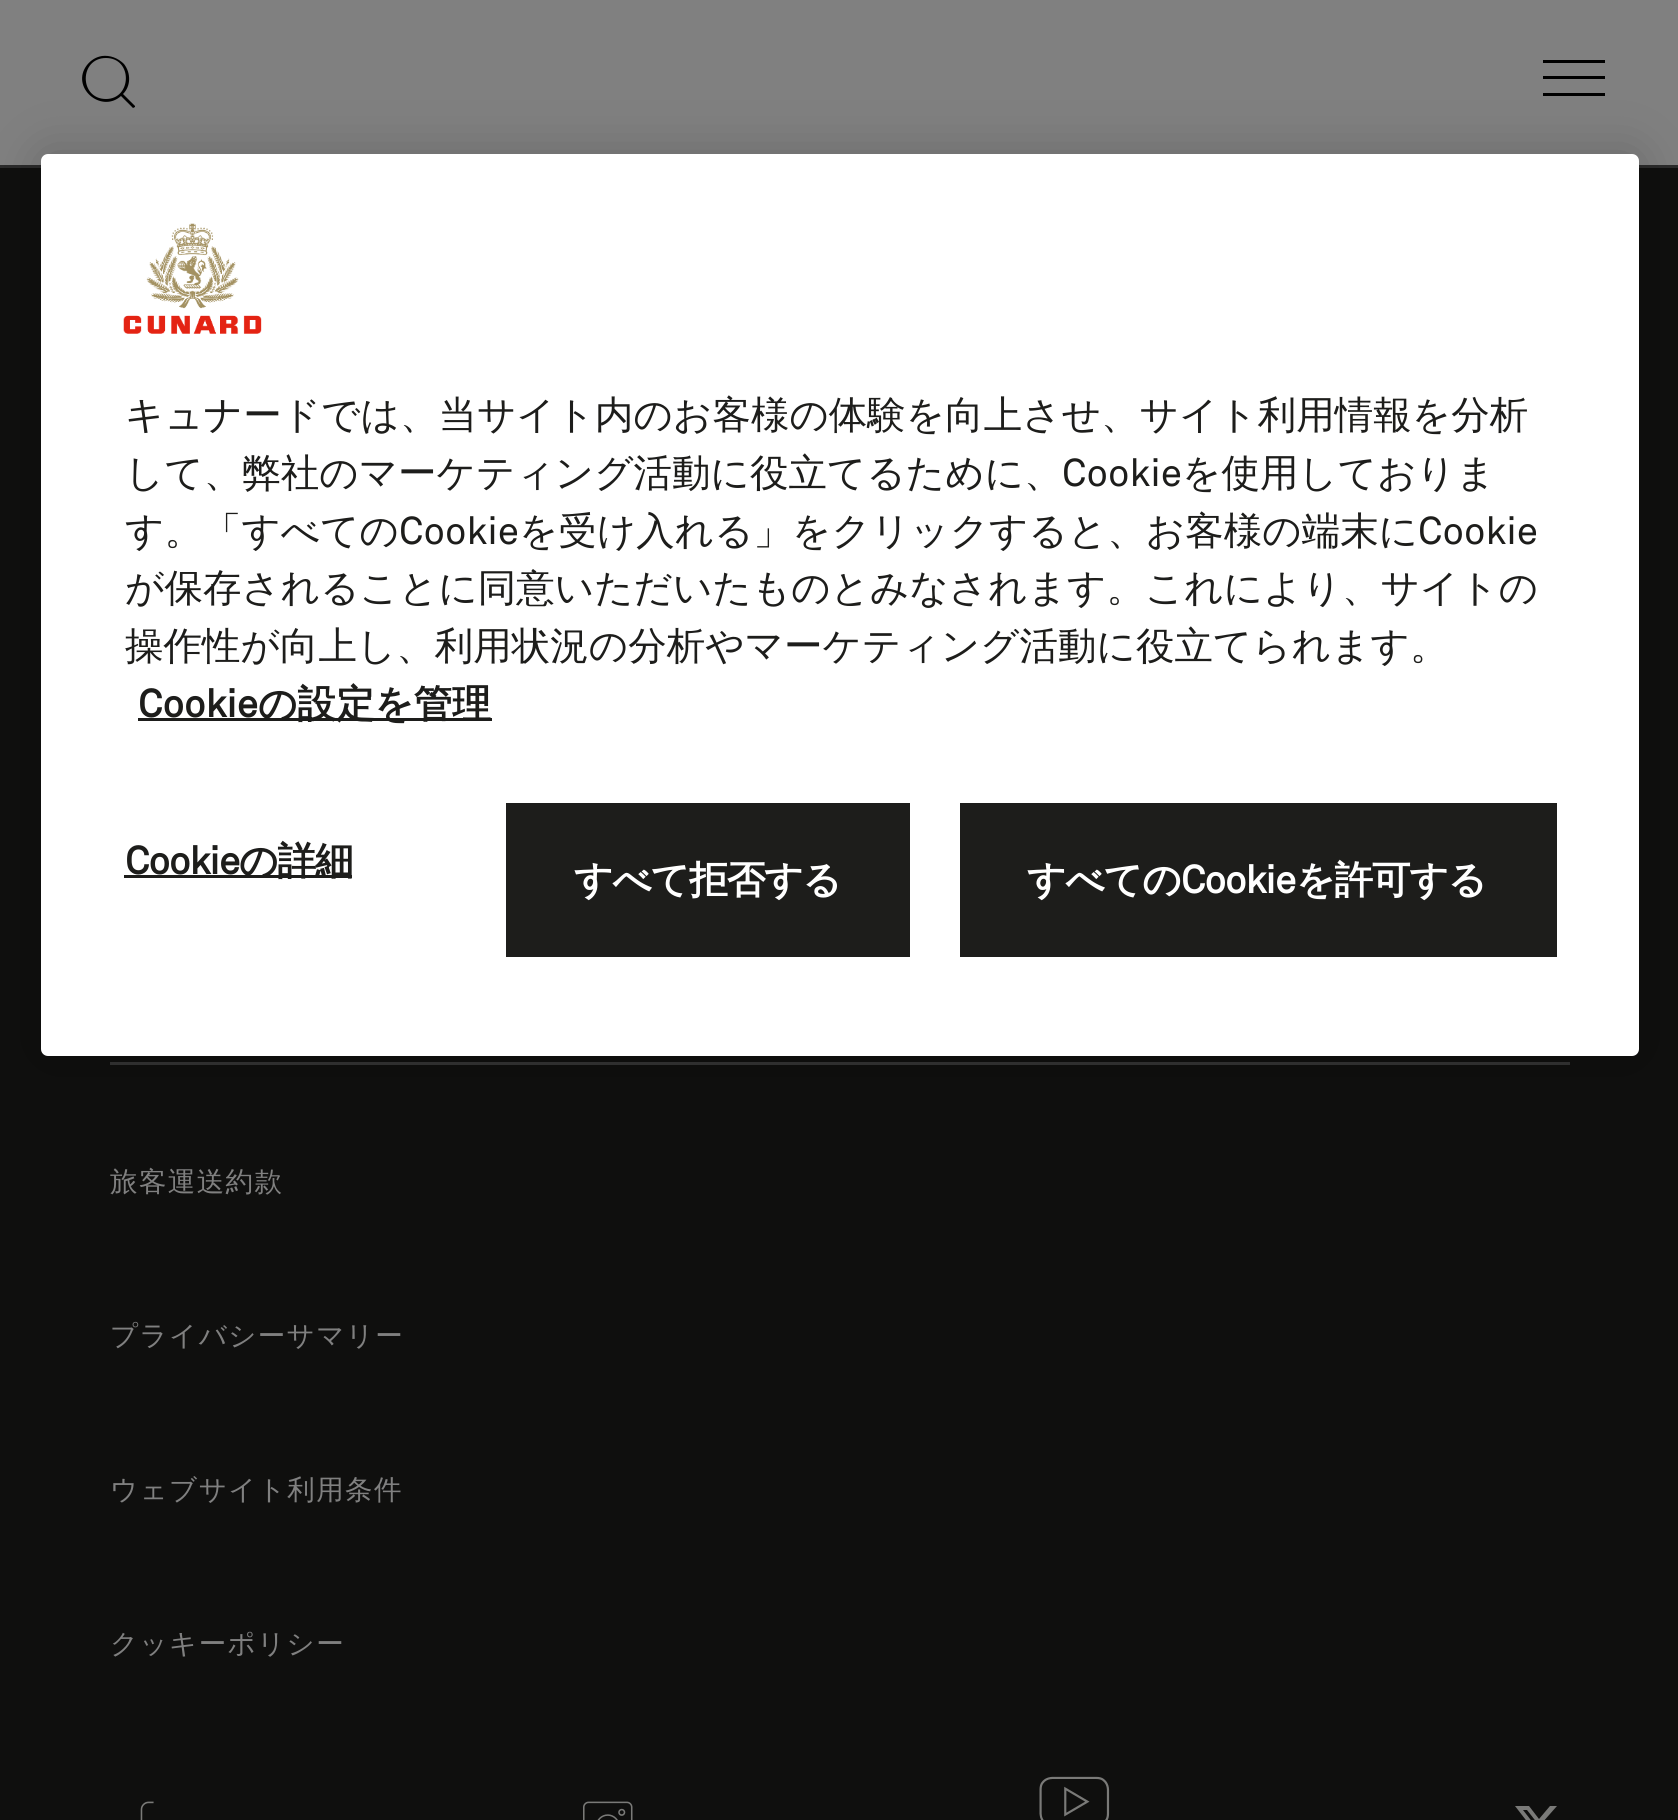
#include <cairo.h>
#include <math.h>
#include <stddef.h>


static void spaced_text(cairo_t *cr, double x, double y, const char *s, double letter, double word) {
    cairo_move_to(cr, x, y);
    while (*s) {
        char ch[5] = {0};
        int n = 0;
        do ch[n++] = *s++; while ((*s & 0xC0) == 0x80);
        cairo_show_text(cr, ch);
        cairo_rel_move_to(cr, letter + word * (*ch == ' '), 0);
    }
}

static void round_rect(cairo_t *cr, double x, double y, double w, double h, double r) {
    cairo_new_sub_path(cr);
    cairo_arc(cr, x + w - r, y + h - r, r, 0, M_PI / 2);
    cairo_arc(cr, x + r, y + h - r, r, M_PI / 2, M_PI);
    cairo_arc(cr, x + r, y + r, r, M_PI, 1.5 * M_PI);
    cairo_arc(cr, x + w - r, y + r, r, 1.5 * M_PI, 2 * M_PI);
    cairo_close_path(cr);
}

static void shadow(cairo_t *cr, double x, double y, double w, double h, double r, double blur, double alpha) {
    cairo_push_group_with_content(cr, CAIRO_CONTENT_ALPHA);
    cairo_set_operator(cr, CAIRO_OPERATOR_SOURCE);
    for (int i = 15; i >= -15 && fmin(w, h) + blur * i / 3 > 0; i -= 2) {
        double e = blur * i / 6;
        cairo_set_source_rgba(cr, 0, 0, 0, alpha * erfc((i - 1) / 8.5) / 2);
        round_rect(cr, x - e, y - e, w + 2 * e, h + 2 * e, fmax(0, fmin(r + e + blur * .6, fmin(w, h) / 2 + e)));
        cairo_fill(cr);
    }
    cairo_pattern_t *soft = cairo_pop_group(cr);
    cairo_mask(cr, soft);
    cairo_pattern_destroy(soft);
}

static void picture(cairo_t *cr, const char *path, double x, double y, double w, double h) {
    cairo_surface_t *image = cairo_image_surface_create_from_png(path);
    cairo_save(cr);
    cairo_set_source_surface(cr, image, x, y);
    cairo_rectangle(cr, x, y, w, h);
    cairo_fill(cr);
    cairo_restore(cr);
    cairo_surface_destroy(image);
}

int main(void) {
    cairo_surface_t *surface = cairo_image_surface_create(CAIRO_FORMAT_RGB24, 1678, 1820);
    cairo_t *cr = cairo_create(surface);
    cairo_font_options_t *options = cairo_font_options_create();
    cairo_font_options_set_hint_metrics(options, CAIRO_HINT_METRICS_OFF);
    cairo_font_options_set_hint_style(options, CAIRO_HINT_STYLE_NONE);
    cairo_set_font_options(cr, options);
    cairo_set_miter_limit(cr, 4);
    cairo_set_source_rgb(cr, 0.059, 0.059, 0.055);
    cairo_paint(cr);
    cairo_set_source_rgb(cr, 0.502, 0.502, 0.502);
    cairo_rectangle(cr, 0, 0, 1678, 165);
    cairo_fill(cr);
    cairo_set_source_rgb(cr, 0.169, 0.169, 0.169);
    cairo_rectangle(cr, 0, 165, 1678, 3);
    cairo_fill(cr);
    cairo_set_source_rgb(cr, 0, 0, 0);
    cairo_new_path(cr);
    cairo_move_to(cr, 133, 108);
    cairo_line_to(cr, 121, 96);
    cairo_curve_to(cr, 101, 114, 70, 87, 87, 65);
    cairo_curve_to(cr, 91, 60, 96, 57, 102, 56);
    cairo_curve_to(cr, 110, 55, 118, 58, 124, 64);
    cairo_curve_to(cr, 131, 73, 131, 86, 123, 94);
    cairo_line_to(cr, 135, 106);
    cairo_line_to(cr, 135, 107);
    cairo_close_path(cr);
    cairo_move_to(cr, 106, 58);
    cairo_curve_to(cr, 79, 58, 79, 99, 106, 99);
    cairo_curve_to(cr, 132, 99, 133, 58, 106, 58);
    cairo_close_path(cr);
    cairo_fill(cr);
    cairo_new_path(cr);
    cairo_move_to(cr, 1543, 60);
    cairo_line_to(cr, 1605, 60);
    cairo_line_to(cr, 1605, 63);
    cairo_line_to(cr, 1543, 63);
    cairo_close_path(cr);
    cairo_move_to(cr, 1543, 76);
    cairo_line_to(cr, 1605, 76);
    cairo_line_to(cr, 1605, 79);
    cairo_line_to(cr, 1543, 79);
    cairo_close_path(cr);
    cairo_move_to(cr, 1543, 93);
    cairo_line_to(cr, 1605, 93);
    cairo_line_to(cr, 1605, 96);
    cairo_line_to(cr, 1543, 96);
    cairo_close_path(cr);
    cairo_fill(cr);
    cairo_set_source_rgb(cr, 0.2, 0.2, 0.2);
    cairo_rectangle(cr, 110, 1062, 1460, 3);
    cairo_fill(cr);
    cairo_set_source_rgb(cr, 0, 0, 0);
    shadow(cr, 41, 154, 1598, 902, 7, 25, 0.2);
    cairo_set_source_rgb(cr, 1, 1, 1);
    round_rect(cr, 41, 154, 1598, 902, 7);
    cairo_fill(cr);
    picture(cr, "img1.png", 123, 223, 139, 111);
    cairo_select_font_face(cr, "WenQuanYi Zen Hei Medium", CAIRO_FONT_SLANT_NORMAL, CAIRO_FONT_WEIGHT_NORMAL);
    cairo_set_font_size(cr, 38.5);
    cairo_set_source_rgb(cr, 0.114, 0.114, 0.106);
    cairo_move_to(cr, 125, 428);
    cairo_show_text(cr, "キュナードでは、当サイト内のお客様の体験を向上させ、サイト利用情報を分析");
    cairo_move_to(cr, 125, 486);
    cairo_show_text(cr, "して、弊社のマーケティング活動に役立てるために、");
    cairo_select_font_face(cr, "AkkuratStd", CAIRO_FONT_SLANT_NORMAL, CAIRO_FONT_WEIGHT_NORMAL);
    cairo_move_to(cr, 1062, 486);
    cairo_show_text(cr, "Cookie");
    cairo_select_font_face(cr, "WenQuanYi Zen Hei Medium", CAIRO_FONT_SLANT_NORMAL, CAIRO_FONT_WEIGHT_NORMAL);
    cairo_move_to(cr, 1182, 486);
    cairo_show_text(cr, "を使用しておりま");
    cairo_move_to(cr, 125, 544);
    cairo_show_text(cr, "す。「すべての");
    cairo_select_font_face(cr, "AkkuratStd", CAIRO_FONT_SLANT_NORMAL, CAIRO_FONT_WEIGHT_NORMAL);
    cairo_move_to(cr, 399, 544);
    cairo_show_text(cr, "Cookie");
    cairo_select_font_face(cr, "WenQuanYi Zen Hei Medium", CAIRO_FONT_SLANT_NORMAL, CAIRO_FONT_WEIGHT_NORMAL);
    cairo_move_to(cr, 519, 544);
    cairo_show_text(cr, "を受け入れる」をクリックすると、お客様の端末に");
    cairo_select_font_face(cr, "AkkuratStd", CAIRO_FONT_SLANT_NORMAL, CAIRO_FONT_WEIGHT_NORMAL);
    cairo_move_to(cr, 1418, 544);
    cairo_show_text(cr, "Cookie");
    cairo_select_font_face(cr, "WenQuanYi Zen Hei Medium", CAIRO_FONT_SLANT_NORMAL, CAIRO_FONT_WEIGHT_NORMAL);
    cairo_move_to(cr, 125, 601);
    cairo_show_text(cr, "が保存されることに同意いただいたものとみなされます。これにより、サイトの");
    cairo_move_to(cr, 125, 659);
    cairo_show_text(cr, "操作性が向上し、利用状況の分析やマーケティング活動に役立てられます。");
    cairo_select_font_face(cr, "AkkuratStd", CAIRO_FONT_SLANT_NORMAL, CAIRO_FONT_WEIGHT_BOLD);
    cairo_move_to(cr, 138, 717);
    cairo_show_text(cr, "Cookie");
    cairo_rectangle(cr, 138, 718, 354, 3);
    cairo_fill(cr);
    cairo_select_font_face(cr, "WenQuanYi Zen Hei", CAIRO_FONT_SLANT_NORMAL, CAIRO_FONT_WEIGHT_BOLD);
    cairo_move_to(cr, 258, 717);
    cairo_show_text(cr, "の設定を管理");
    cairo_select_font_face(cr, "AkkuratStd", CAIRO_FONT_SLANT_NORMAL, CAIRO_FONT_WEIGHT_BOLD);
    spaced_text(cr, 125, 874, "Cookie", -1, 0);
    cairo_rectangle(cr, 124, 875, 228, 3);
    cairo_fill(cr);
    cairo_select_font_face(cr, "WenQuanYi Zen Hei", CAIRO_FONT_SLANT_NORMAL, CAIRO_FONT_WEIGHT_BOLD);
    spaced_text(cr, 239, 874, "の詳細", -1, 0);
    cairo_rectangle(cr, 506, 803, 404, 154);
    cairo_fill(cr);
    cairo_set_source_rgb(cr, 1, 1, 1);
    spaced_text(cr, 574, 893, "すべて拒否する", -1, 0);
    cairo_set_source_rgb(cr, 0.114, 0.114, 0.106);
    cairo_rectangle(cr, 960, 803, 597, 154);
    cairo_fill(cr);
    cairo_set_source_rgb(cr, 1, 1, 1);
    spaced_text(cr, 1027, 893, "すべての", -1, 0);
    cairo_select_font_face(cr, "AkkuratStd", CAIRO_FONT_SLANT_NORMAL, CAIRO_FONT_WEIGHT_BOLD);
    spaced_text(cr, 1181, 893, "Cookie", -1, 0);
    cairo_select_font_face(cr, "WenQuanYi Zen Hei", CAIRO_FONT_SLANT_NORMAL, CAIRO_FONT_WEIGHT_BOLD);
    spaced_text(cr, 1296, 893, "を許可する", -1, 0);
    cairo_select_font_face(cr, "WenQuanYi Zen Hei Medium", CAIRO_FONT_SLANT_NORMAL, CAIRO_FONT_WEIGHT_NORMAL);
    cairo_set_font_size(cr, 27.5);
    cairo_set_source_rgb(cr, 0.502, 0.502, 0.502);
    spaced_text(cr, 110, 1191, "旅客運送約款", 1.4, 0);
    spaced_text(cr, 110, 1345, "プライバシーサマリー", 1.4, 0);
    spaced_text(cr, 110, 1499, "ウェブサイト利用条件", 1.4, 0);
    spaced_text(cr, 110, 1653, "クッキーポリシー", 1.4, 0);
    picture(cr, "img2.png", 140, 1801, 14, 19);
    picture(cr, "img3.png", 583, 1801, 50, 19);
    picture(cr, "img4.png", 1039, 1776, 71, 44);
    cairo_set_source_rgb(cr, 0.478, 0.478, 0.471);
    cairo_new_path(cr);
    cairo_move_to(cr, 1550, 1806);
    cairo_line_to(cr, 1557, 1806);
    cairo_line_to(cr, 1542, 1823);
    cairo_line_to(cr, 1560, 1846);
    cairo_line_to(cr, 1546, 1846);
    cairo_line_to(cr, 1535, 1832);
    cairo_line_to(cr, 1523, 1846);
    cairo_line_to(cr, 1516, 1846);
    cairo_line_to(cr, 1532, 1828);
    cairo_line_to(cr, 1515, 1806);
    cairo_line_to(cr, 1529, 1806);
    cairo_line_to(cr, 1539, 1819);
    cairo_close_path(cr);
    cairo_move_to(cr, 1548, 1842);
    cairo_line_to(cr, 1552, 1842);
    cairo_line_to(cr, 1527, 1810);
    cairo_line_to(cr, 1523, 1810);
    cairo_close_path(cr);
    cairo_fill(cr);
    cairo_surface_write_to_png(surface, "page.png");
    cairo_font_options_destroy(options);
    cairo_destroy(cr);
    cairo_surface_destroy(surface);
    return 0;
}
